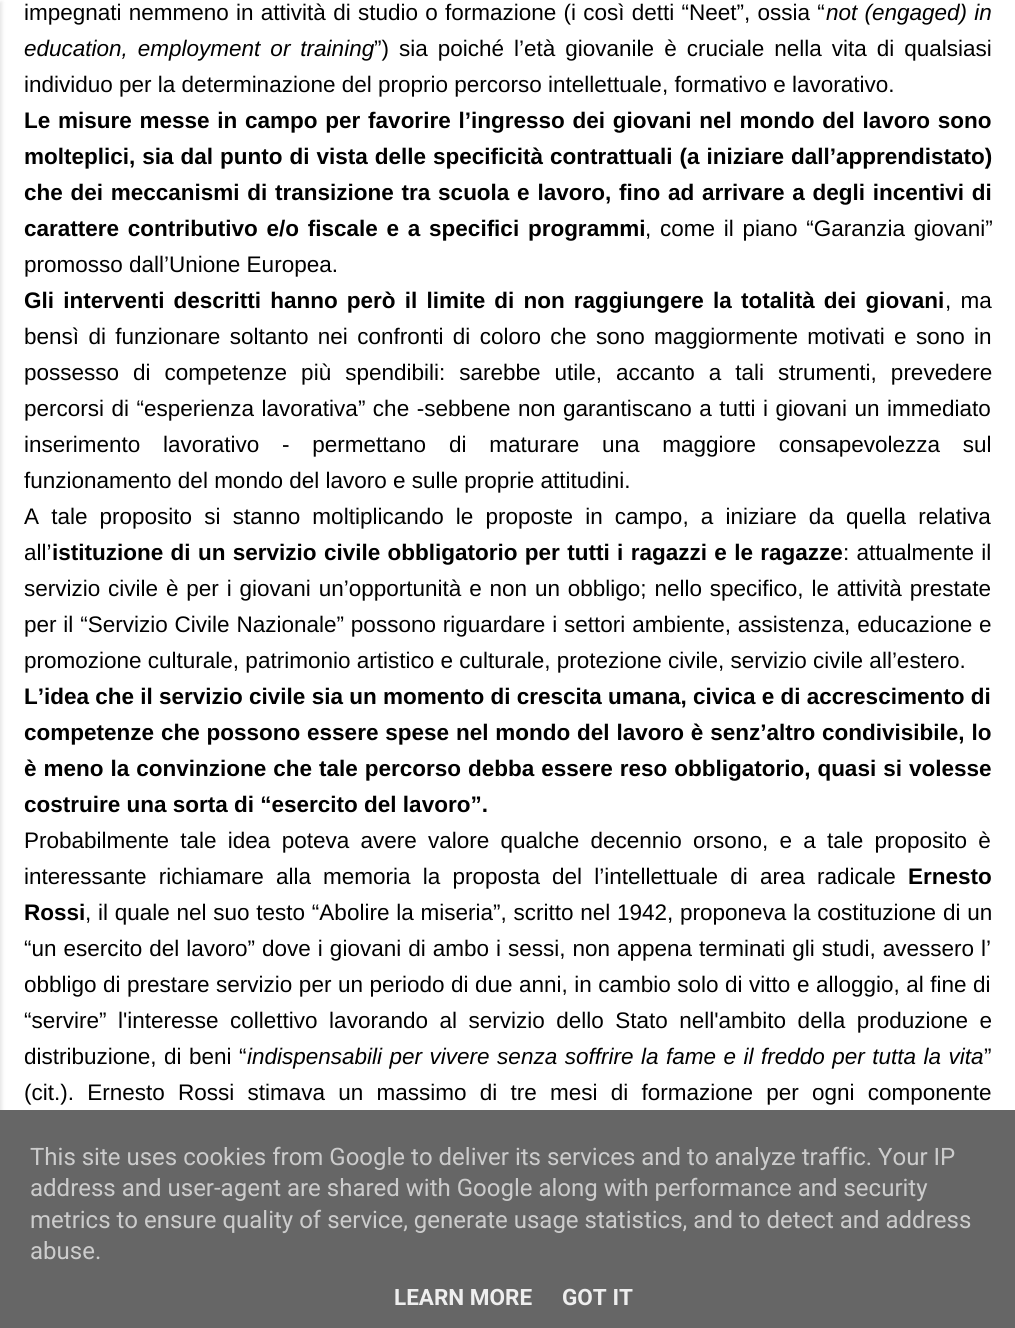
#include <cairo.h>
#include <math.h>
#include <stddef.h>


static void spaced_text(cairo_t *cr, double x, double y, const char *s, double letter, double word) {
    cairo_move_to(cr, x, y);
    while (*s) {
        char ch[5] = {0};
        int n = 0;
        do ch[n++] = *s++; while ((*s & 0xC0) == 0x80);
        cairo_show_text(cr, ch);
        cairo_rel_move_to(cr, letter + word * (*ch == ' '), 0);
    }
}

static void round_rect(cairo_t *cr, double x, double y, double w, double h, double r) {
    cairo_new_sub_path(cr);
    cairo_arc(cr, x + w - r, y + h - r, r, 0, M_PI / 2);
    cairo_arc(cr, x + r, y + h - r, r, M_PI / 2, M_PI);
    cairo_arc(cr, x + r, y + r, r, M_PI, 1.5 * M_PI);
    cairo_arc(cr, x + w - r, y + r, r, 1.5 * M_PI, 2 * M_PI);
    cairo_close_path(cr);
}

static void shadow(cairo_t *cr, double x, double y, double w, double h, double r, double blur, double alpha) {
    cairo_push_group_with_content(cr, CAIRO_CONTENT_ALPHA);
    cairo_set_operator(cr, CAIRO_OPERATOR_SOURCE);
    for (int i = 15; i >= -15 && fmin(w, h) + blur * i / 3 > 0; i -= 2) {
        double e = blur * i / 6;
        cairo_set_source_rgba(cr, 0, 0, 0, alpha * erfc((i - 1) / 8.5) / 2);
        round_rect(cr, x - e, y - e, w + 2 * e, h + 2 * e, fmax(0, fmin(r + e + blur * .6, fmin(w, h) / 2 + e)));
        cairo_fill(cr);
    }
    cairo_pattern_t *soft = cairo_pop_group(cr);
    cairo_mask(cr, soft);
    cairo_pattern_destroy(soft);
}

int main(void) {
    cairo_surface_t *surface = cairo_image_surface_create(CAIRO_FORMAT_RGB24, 1015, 1328);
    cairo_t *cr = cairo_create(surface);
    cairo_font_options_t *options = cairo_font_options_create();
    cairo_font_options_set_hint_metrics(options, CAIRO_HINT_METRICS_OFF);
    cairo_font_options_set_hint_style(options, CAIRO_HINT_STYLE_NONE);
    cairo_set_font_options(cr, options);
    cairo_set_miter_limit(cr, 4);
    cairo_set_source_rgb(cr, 1, 1, 1);
    cairo_paint(cr);
    cairo_set_source_rgb(cr, 0, 0, 0);
    shadow(cr, -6, 2, 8, 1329, 0, 2, 0.1);
    cairo_select_font_face(cr, "Liberation Sans", CAIRO_FONT_SLANT_NORMAL, CAIRO_FONT_WEIGHT_NORMAL);
    cairo_set_font_size(cr, 22.5);
    cairo_set_source_rgb(cr, 0, 0, 0);
    spaced_text(cr, 24, 20, "impegnati nemmeno in attività di studio o formazione (i così detti “Neet”, ossia “", 0, 1);
    cairo_select_font_face(cr, "Liberation Sans", CAIRO_FONT_SLANT_ITALIC, CAIRO_FONT_WEIGHT_NORMAL);
    spaced_text(cr, 826, 20, "not (engaged) in", 0, 1);
    spaced_text(cr, 24, 56, "education, employment or training", 0, 3.75);
    cairo_select_font_face(cr, "Liberation Sans", CAIRO_FONT_SLANT_NORMAL, CAIRO_FONT_WEIGHT_NORMAL);
    spaced_text(cr, 374, 56, "”) sia poiché l’età giovanile è cruciale nella vita di qualsiasi", 0, 3.75);
    cairo_move_to(cr, 24, 92);
    cairo_show_text(cr, "individuo per la determinazione del proprio percorso intellettuale, formativo e lavorativo.");
    cairo_select_font_face(cr, "Liberation Sans", CAIRO_FONT_SLANT_NORMAL, CAIRO_FONT_WEIGHT_BOLD);
    spaced_text(cr, 24, 128, "Le misure messe in campo per favorire l’ingresso dei giovani nel mondo del lavoro sono", 0, 1.5);
    spaced_text(cr, 24, 164, "molteplici, sia dal punto di vista delle specificità contrattuali (a iniziare dall’apprendistato)", 0, 0.75);
    spaced_text(cr, 24, 200, "che dei meccanismi di transizione tra scuola e lavoro, fino ad arrivare a degli incentivi di", 0, 1.5);
    spaced_text(cr, 24, 236, "carattere contributivo e/o fiscale e a specifici programmi", 0, 2.5);
    cairo_select_font_face(cr, "Liberation Sans", CAIRO_FONT_SLANT_NORMAL, CAIRO_FONT_WEIGHT_NORMAL);
    spaced_text(cr, 645, 236, ", come il piano “Garanzia giovani”", 0, 2.5);
    cairo_move_to(cr, 24, 272);
    cairo_show_text(cr, "promosso dall’Unione Europea.");
    cairo_select_font_face(cr, "Liberation Sans", CAIRO_FONT_SLANT_NORMAL, CAIRO_FONT_WEIGHT_BOLD);
    spaced_text(cr, 24, 308, "Gli interventi descritti hanno però il limite di non raggiungere la totalità dei giovani", 0, 2.9);
    cairo_select_font_face(cr, "Liberation Sans", CAIRO_FONT_SLANT_NORMAL, CAIRO_FONT_WEIGHT_NORMAL);
    spaced_text(cr, 945, 308, ", ma", 0, 3);
    spaced_text(cr, 24, 344, "bensì di funzionare soltanto nei confronti di coloro che sono maggiormente motivati e sono in", 0, 3.1);
    spaced_text(cr, 24, 380, "possesso di competenze più spendibili: sarebbe utile, accanto a tali strumenti, prevedere", 0, 7.75);
    spaced_text(cr, 24, 416, "percorsi di “esperienza lavorativa” che -sebbene non garantiscano a tutti i giovani un immediato", 0, 1.25);
    spaced_text(cr, 24, 452, "inserimento lavorativo - permettano di maturare una maggiore consapevolezza sul", 0, 16.5);
    cairo_move_to(cr, 24, 488);
    cairo_show_text(cr, "funzionamento del mondo del lavoro e sulle proprie attitudini.");
    spaced_text(cr, 24, 524, "A tale proposito si stanno moltiplicando le proposte in campo, a iniziare da quella relativa", 0, 5.9);
    cairo_move_to(cr, 24, 560);
    cairo_show_text(cr, "all’");
    cairo_select_font_face(cr, "Liberation Sans", CAIRO_FONT_SLANT_NORMAL, CAIRO_FONT_WEIGHT_BOLD);
    spaced_text(cr, 52, 560, "istituzione di un servizio civile obbligatorio per tutti i ragazzi e le ragazze", 0, 1.1);
    cairo_select_font_face(cr, "Liberation Sans", CAIRO_FONT_SLANT_NORMAL, CAIRO_FONT_WEIGHT_NORMAL);
    spaced_text(cr, 843, 560, ": attualmente il", 0, 1);
    spaced_text(cr, 24, 596, "servizio civile è per i giovani un’opportunità e non un obbligo; nello specifico, le attività prestate", 0, 1.6);
    spaced_text(cr, 24, 632, "per il “Servizio Civile Nazionale” possono riguardare i settori ambiente, assistenza, educazione e", 0, 0.6);
    cairo_move_to(cr, 24, 668);
    cairo_show_text(cr, "promozione culturale, patrimonio artistico e culturale, protezione civile, servizio civile all’estero.");
    cairo_select_font_face(cr, "Liberation Sans", CAIRO_FONT_SLANT_NORMAL, CAIRO_FONT_WEIGHT_BOLD);
    cairo_move_to(cr, 24, 704);
    cairo_show_text(cr, "L’idea che il servizio civile sia un momento di crescita umana, civica e di accrescimento di");
    spaced_text(cr, 24, 740, "competenze che possono essere spese nel mondo del lavoro è senz’altro condivisibile, lo", 0, 0.6);
    spaced_text(cr, 24, 776, "è meno la convinzione che tale percorso debba essere reso obbligatorio, quasi si volesse", 0, 0.75);
    cairo_move_to(cr, 24, 812);
    cairo_show_text(cr, "costruire una sorta di “esercito del lavoro”.");
    cairo_select_font_face(cr, "Liberation Sans", CAIRO_FONT_SLANT_NORMAL, CAIRO_FONT_WEIGHT_NORMAL);
    spaced_text(cr, 24, 848, "Probabilmente tale idea poteva avere valore qualche decennio orsono, e a tale proposito è", 0, 5);
    spaced_text(cr, 24, 884, "interessante richiamare alla memoria la proposta del l’intellettuale di area radicale", 0, 5.9);
    cairo_select_font_face(cr, "Liberation Sans", CAIRO_FONT_SLANT_NORMAL, CAIRO_FONT_WEIGHT_BOLD);
    cairo_move_to(cr, 908, 884);
    cairo_show_text(cr, "Ernesto");
    cairo_move_to(cr, 24, 920);
    cairo_show_text(cr, "Rossi");
    cairo_select_font_face(cr, "Liberation Sans", CAIRO_FONT_SLANT_NORMAL, CAIRO_FONT_WEIGHT_NORMAL);
    spaced_text(cr, 85, 920, ", il quale nel suo testo “Abolire la miseria”, scritto nel 1942, proponeva la costituzione di un", 0, 0.5);
    spaced_text(cr, 24, 956, "“un esercito del lavoro” dove i giovani di ambo i sessi, non appena terminati gli studi, avessero l’", 0, 0.75);
    spaced_text(cr, 24, 992, "obbligo di prestare servizio per un periodo di due anni, in cambio solo di vitto e alloggio, al fine di", 0, 0.25);
    spaced_text(cr, 24, 1028, "“servire” l'interesse collettivo lavorando al servizio dello Stato nell'ambito della produzione e", 0, 5.25);
    spaced_text(cr, 24, 1064, "distribuzione, di beni “", 0, 1.25);
    cairo_select_font_face(cr, "Liberation Sans", CAIRO_FONT_SLANT_ITALIC, CAIRO_FONT_WEIGHT_NORMAL);
    spaced_text(cr, 247, 1064, "indispensabili per vivere senza soffrire la fame e il freddo per tutta la vita", 0, 1.25);
    cairo_select_font_face(cr, "Liberation Sans", CAIRO_FONT_SLANT_NORMAL, CAIRO_FONT_WEIGHT_NORMAL);
    cairo_move_to(cr, 984, 1064);
    cairo_show_text(cr, "”");
    spaced_text(cr, 24, 1100, "(cit.). Ernesto Rossi stimava un massimo di tre mesi di formazione per ogni componente", 0, 7);
    cairo_set_source_rgb(cr, 0.4, 0.4, 0.4);
    cairo_rectangle(cr, 0, 1110, 1015, 218);
    cairo_fill(cr);
    cairo_select_font_face(cr, "Roboto", CAIRO_FONT_SLANT_NORMAL, CAIRO_FONT_WEIGHT_NORMAL);
    cairo_set_font_size(cr, 24);
    cairo_set_source_rgb(cr, 0.8, 0.8, 0.8);
    cairo_move_to(cr, 30, 1165);
    cairo_show_text(cr, "This site uses cookies from Google to deliver its services and to analyze traffic. Your IP");
    cairo_move_to(cr, 30, 1196);
    cairo_show_text(cr, "address and user-agent are shared with Google along with performance and security");
    cairo_move_to(cr, 30, 1228);
    cairo_show_text(cr, "metrics to ensure quality of service, generate usage statistics, and to detect and address");
    cairo_move_to(cr, 30, 1259);
    cairo_show_text(cr, "abuse.");
    cairo_select_font_face(cr, "Roboto", CAIRO_FONT_SLANT_NORMAL, CAIRO_FONT_WEIGHT_BOLD);
    cairo_set_font_size(cr, 22.5);
    cairo_set_source_rgb(cr, 0.933, 0.933, 0.933);
    cairo_move_to(cr, 394, 1305);
    cairo_show_text(cr, "LEARN MORE");
    cairo_move_to(cr, 562, 1305);
    cairo_show_text(cr, "GOT IT");
    cairo_surface_write_to_png(surface, "page.png");
    cairo_font_options_destroy(options);
    cairo_destroy(cr);
    cairo_surface_destroy(surface);
    return 0;
}
